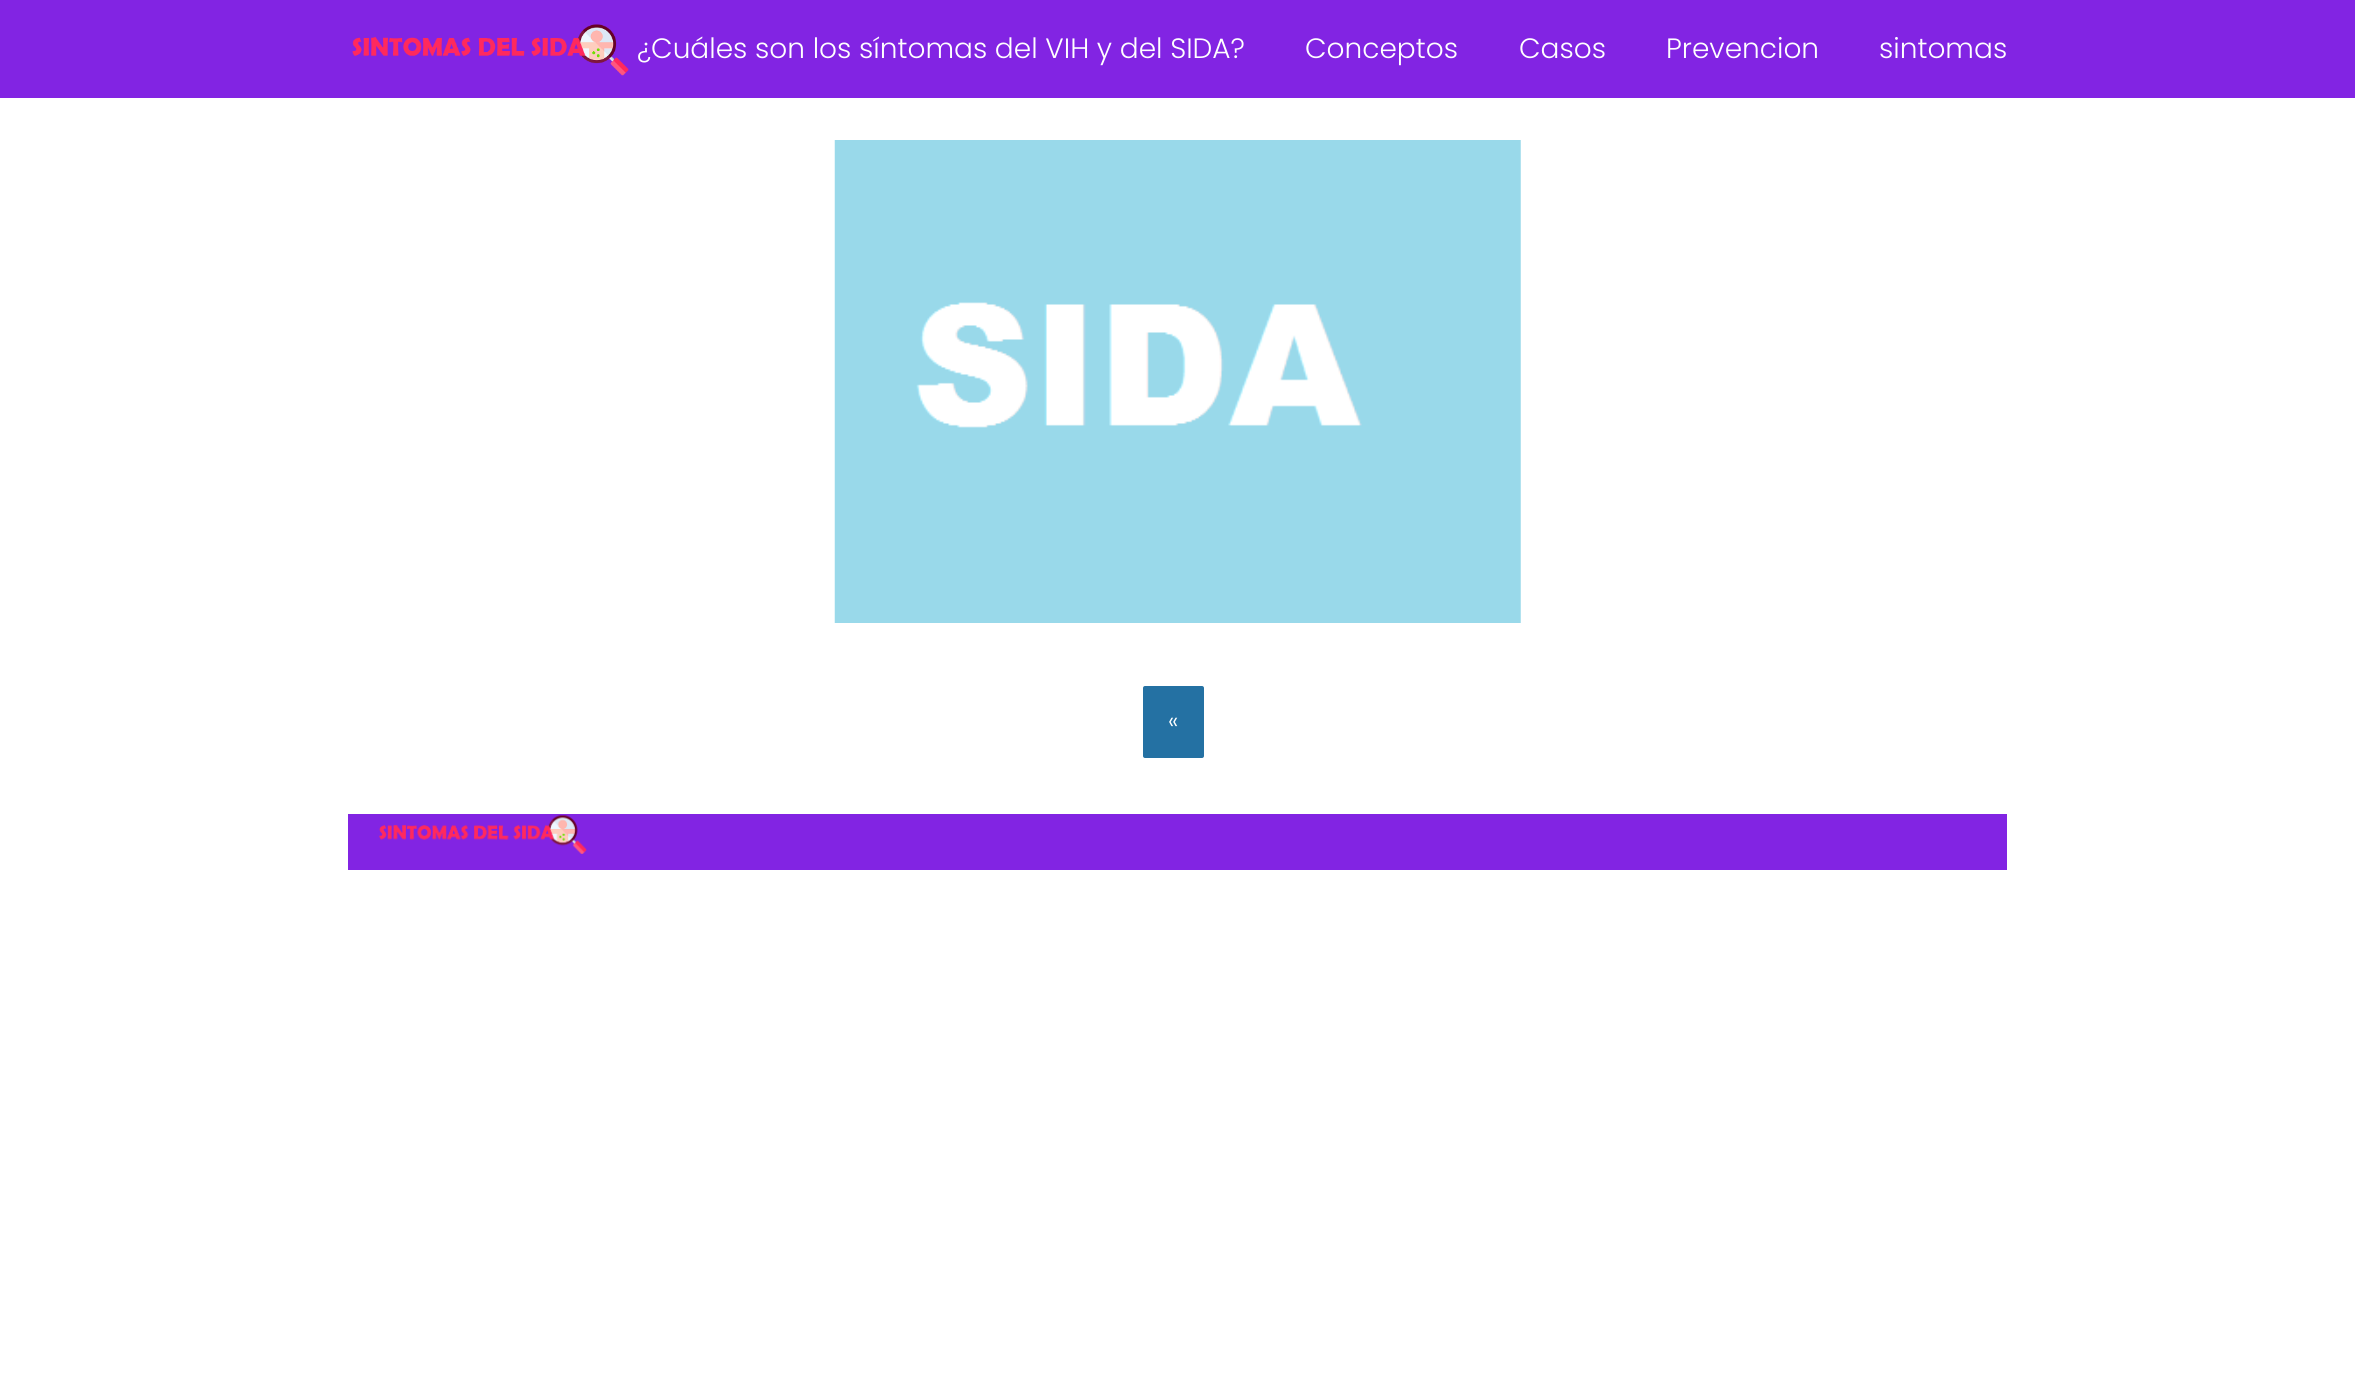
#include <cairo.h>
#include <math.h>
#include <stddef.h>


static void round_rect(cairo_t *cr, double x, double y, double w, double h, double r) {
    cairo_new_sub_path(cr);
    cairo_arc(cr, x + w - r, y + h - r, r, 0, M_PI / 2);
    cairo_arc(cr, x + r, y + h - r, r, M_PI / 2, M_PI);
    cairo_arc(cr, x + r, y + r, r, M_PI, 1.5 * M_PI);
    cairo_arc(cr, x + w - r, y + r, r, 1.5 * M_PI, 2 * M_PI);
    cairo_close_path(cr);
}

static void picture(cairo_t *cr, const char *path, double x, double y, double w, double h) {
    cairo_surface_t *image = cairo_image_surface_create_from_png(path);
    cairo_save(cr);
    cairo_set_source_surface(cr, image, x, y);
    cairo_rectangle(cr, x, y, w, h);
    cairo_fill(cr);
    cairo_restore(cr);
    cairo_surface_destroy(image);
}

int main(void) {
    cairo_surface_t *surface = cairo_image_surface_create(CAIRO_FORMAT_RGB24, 2355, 1387);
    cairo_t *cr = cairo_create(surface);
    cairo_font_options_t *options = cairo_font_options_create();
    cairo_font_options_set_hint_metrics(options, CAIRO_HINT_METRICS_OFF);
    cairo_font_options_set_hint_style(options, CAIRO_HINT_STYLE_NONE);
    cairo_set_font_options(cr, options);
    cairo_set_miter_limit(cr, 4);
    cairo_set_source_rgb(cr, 1, 1, 1);
    cairo_paint(cr);
    cairo_set_source_rgb(cr, 0.51, 0.141, 0.89);
    cairo_rectangle(cr, 0, 0, 2355, 98);
    cairo_fill(cr);
    picture(cr, "img1.png", 352, 24, 277, 52);
    cairo_select_font_face(cr, "Poppins Light", CAIRO_FONT_SLANT_NORMAL, CAIRO_FONT_WEIGHT_NORMAL);
    cairo_set_font_size(cr, 28);
    cairo_set_source_rgb(cr, 1, 1, 1);
    cairo_move_to(cr, 637, 58);
    cairo_show_text(cr, "¿Cuáles son los síntomas del VIH y del SIDA?");
    cairo_move_to(cr, 1305, 58);
    cairo_show_text(cr, "Conceptos");
    cairo_move_to(cr, 1519, 58);
    cairo_show_text(cr, "Casos");
    cairo_move_to(cr, 1666, 58);
    cairo_show_text(cr, "Prevencion");
    cairo_move_to(cr, 1879, 58);
    cairo_show_text(cr, "sintomas");
    picture(cr, "img2.png", 834, 140, 687, 483);
    cairo_set_source_rgb(cr, 0.141, 0.443, 0.639);
    round_rect(cr, 1143, 686, 61, 72, 2);
    cairo_fill(cr);
    cairo_set_font_size(cr, 24);
    cairo_set_source_rgb(cr, 1, 1, 1);
    cairo_move_to(cr, 1168, 729);
    cairo_show_text(cr, "«");
    cairo_set_source_rgb(cr, 0.51, 0.141, 0.89);
    cairo_rectangle(cr, 348, 814, 1659, 56);
    cairo_fill(cr);
    picture(cr, "img3.png", 379, 815, 208, 39);
    cairo_surface_write_to_png(surface, "page.png");
    cairo_font_options_destroy(options);
    cairo_destroy(cr);
    cairo_surface_destroy(surface);
    return 0;
}
